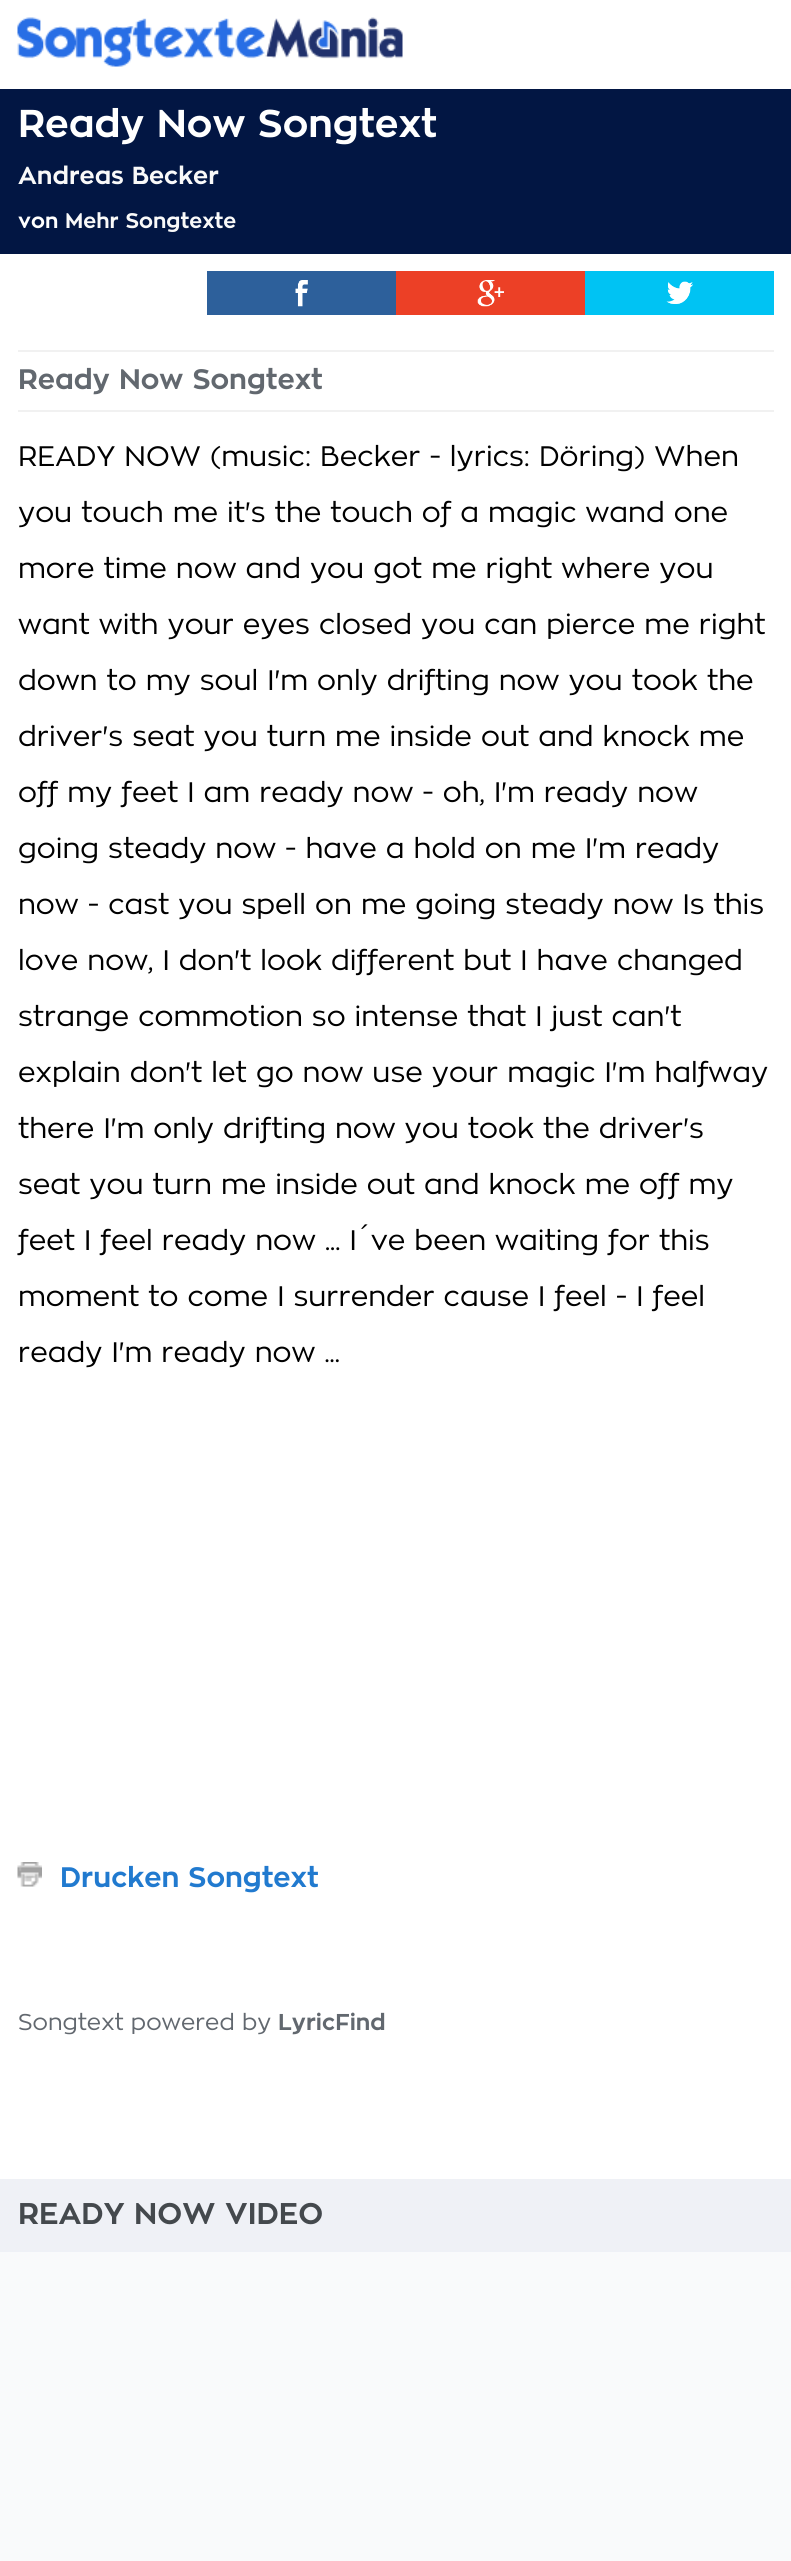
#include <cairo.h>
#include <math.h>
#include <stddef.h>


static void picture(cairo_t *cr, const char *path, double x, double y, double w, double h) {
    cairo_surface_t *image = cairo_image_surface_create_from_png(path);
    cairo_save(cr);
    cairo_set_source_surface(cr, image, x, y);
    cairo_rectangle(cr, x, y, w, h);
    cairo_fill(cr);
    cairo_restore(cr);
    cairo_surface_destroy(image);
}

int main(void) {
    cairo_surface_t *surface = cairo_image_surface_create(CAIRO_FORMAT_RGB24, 791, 2561);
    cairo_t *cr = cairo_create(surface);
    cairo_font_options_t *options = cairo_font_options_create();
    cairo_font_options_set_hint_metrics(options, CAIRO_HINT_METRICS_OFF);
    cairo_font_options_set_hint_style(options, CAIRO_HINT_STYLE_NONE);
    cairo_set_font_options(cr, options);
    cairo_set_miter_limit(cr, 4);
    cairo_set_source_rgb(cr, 1, 1, 1);
    cairo_paint(cr);
    picture(cr, "img1.png", 17, 17, 386, 50);
    cairo_set_source_rgb(cr, 0.008, 0.086, 0.263);
    cairo_rectangle(cr, 0, 89, 791, 165);
    cairo_fill(cr);
    cairo_select_font_face(cr, "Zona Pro", CAIRO_FONT_SLANT_NORMAL, CAIRO_FONT_WEIGHT_BOLD);
    cairo_set_font_size(cr, 38.5);
    cairo_set_source_rgb(cr, 1, 1, 1);
    cairo_move_to(cr, 18, 137);
    cairo_show_text(cr, "Ready Now Songtext");
    cairo_set_font_size(cr, 24.5);
    cairo_set_source_rgb(cr, 0.976, 0.976, 0.976);
    cairo_move_to(cr, 18, 184);
    cairo_show_text(cr, "Andreas Becker");
    cairo_set_font_size(cr, 21);
    cairo_set_source_rgb(cr, 1, 1, 1);
    cairo_move_to(cr, 18, 228);
    cairo_show_text(cr, "von");
    cairo_set_source_rgb(cr, 0.976, 0.976, 0.976);
    cairo_move_to(cr, 65, 228);
    cairo_show_text(cr, "Mehr Songtexte");
    cairo_set_source_rgb(cr, 0.176, 0.376, 0.608);
    cairo_rectangle(cr, 207, 271, 189, 44);
    cairo_fill(cr);
    picture(cr, "img2.png", 295, 280, 13, 27);
    cairo_set_source_rgb(cr, 0.922, 0.251, 0.149);
    cairo_rectangle(cr, 396, 271, 189, 44);
    cairo_fill(cr);
    picture(cr, "img3.png", 477, 280, 27, 27);
    cairo_set_source_rgb(cr, 0, 0.765, 0.953);
    cairo_rectangle(cr, 585, 271, 189, 44);
    cairo_fill(cr);
    picture(cr, "img4.png", 666, 281, 27, 23);
    cairo_set_source_rgb(cr, 0.945, 0.945, 0.945);
    cairo_rectangle(cr, 18, 350, 756, 2);
    cairo_fill(cr);
    cairo_rectangle(cr, 18, 410, 756, 2);
    cairo_fill(cr);
    cairo_set_font_size(cr, 28);
    cairo_set_source_rgb(cr, 0.384, 0.408, 0.435);
    cairo_move_to(cr, 18, 389);
    cairo_show_text(cr, "Ready Now Songtext");
    cairo_select_font_face(cr, "Zona Pro", CAIRO_FONT_SLANT_NORMAL, CAIRO_FONT_WEIGHT_NORMAL);
    cairo_set_source_rgb(cr, 0, 0, 0);
    cairo_move_to(cr, 18, 466);
    cairo_show_text(cr, "READY NOW (music: Becker - lyrics: Döring) When");
    cairo_move_to(cr, 18, 522);
    cairo_show_text(cr, "you touch me it's the touch of a magic wand one");
    cairo_move_to(cr, 18, 578);
    cairo_show_text(cr, "more time now and you got me right where you");
    cairo_move_to(cr, 18, 634);
    cairo_show_text(cr, "want with your eyes closed you can pierce me right");
    cairo_move_to(cr, 18, 690);
    cairo_show_text(cr, "down to my soul I'm only drifting now you took the");
    cairo_move_to(cr, 18, 746);
    cairo_show_text(cr, "driver's seat you turn me inside out and knock me");
    cairo_move_to(cr, 18, 802);
    cairo_show_text(cr, "off my feet I am ready now - oh, I'm ready now");
    cairo_move_to(cr, 18, 858);
    cairo_show_text(cr, "going steady now - have a hold on me I'm ready");
    cairo_move_to(cr, 18, 914);
    cairo_show_text(cr, "now - cast you spell on me going steady now Is this");
    cairo_move_to(cr, 18, 970);
    cairo_show_text(cr, "love now, I don't look different but I have changed");
    cairo_move_to(cr, 18, 1026);
    cairo_show_text(cr, "strange commotion so intense that I just can't");
    cairo_move_to(cr, 18, 1082);
    cairo_show_text(cr, "explain don't let go now use your magic I'm halfway");
    cairo_move_to(cr, 18, 1138);
    cairo_show_text(cr, "there I'm only drifting now you took the driver's");
    cairo_move_to(cr, 18, 1194);
    cairo_show_text(cr, "seat you turn me inside out and knock me off my");
    cairo_move_to(cr, 18, 1250);
    cairo_show_text(cr, "feet I feel ready now ... I´ve been waiting for this");
    cairo_move_to(cr, 18, 1306);
    cairo_show_text(cr, "moment to come I surrender cause I feel - I feel");
    cairo_move_to(cr, 18, 1362);
    cairo_show_text(cr, "ready I'm ready now ...");
    picture(cr, "img5.png", 17, 1862, 25, 25);
    cairo_select_font_face(cr, "Zona Pro", CAIRO_FONT_SLANT_NORMAL, CAIRO_FONT_WEIGHT_BOLD);
    cairo_set_source_rgb(cr, 0.129, 0.478, 0.812);
    cairo_move_to(cr, 60, 1887);
    cairo_show_text(cr, "Drucken Songtext");
    cairo_select_font_face(cr, "Zona Pro", CAIRO_FONT_SLANT_NORMAL, CAIRO_FONT_WEIGHT_NORMAL);
    cairo_set_font_size(cr, 22.75);
    cairo_set_source_rgb(cr, 0.384, 0.408, 0.435);
    cairo_move_to(cr, 18, 2030);
    cairo_show_text(cr, "Songtext powered by");
    cairo_select_font_face(cr, "Zona Pro", CAIRO_FONT_SLANT_NORMAL, CAIRO_FONT_WEIGHT_BOLD);
    cairo_move_to(cr, 278, 2030);
    cairo_show_text(cr, "LyricFind");
    cairo_set_source_rgb(cr, 0.973, 0.98, 0.984);
    cairo_rectangle(cr, 0, 2252, 791, 309);
    cairo_fill(cr);
    cairo_set_source_rgb(cr, 0.937, 0.945, 0.961);
    cairo_rectangle(cr, 0, 2179, 791, 73);
    cairo_fill(cr);
    cairo_set_font_size(cr, 29.75);
    cairo_set_source_rgb(cr, 0.267, 0.286, 0.302);
    cairo_move_to(cr, 18, 2224);
    cairo_show_text(cr, "READY NOW VIDEO");
    cairo_surface_write_to_png(surface, "page.png");
    cairo_font_options_destroy(options);
    cairo_destroy(cr);
    cairo_surface_destroy(surface);
    return 0;
}
